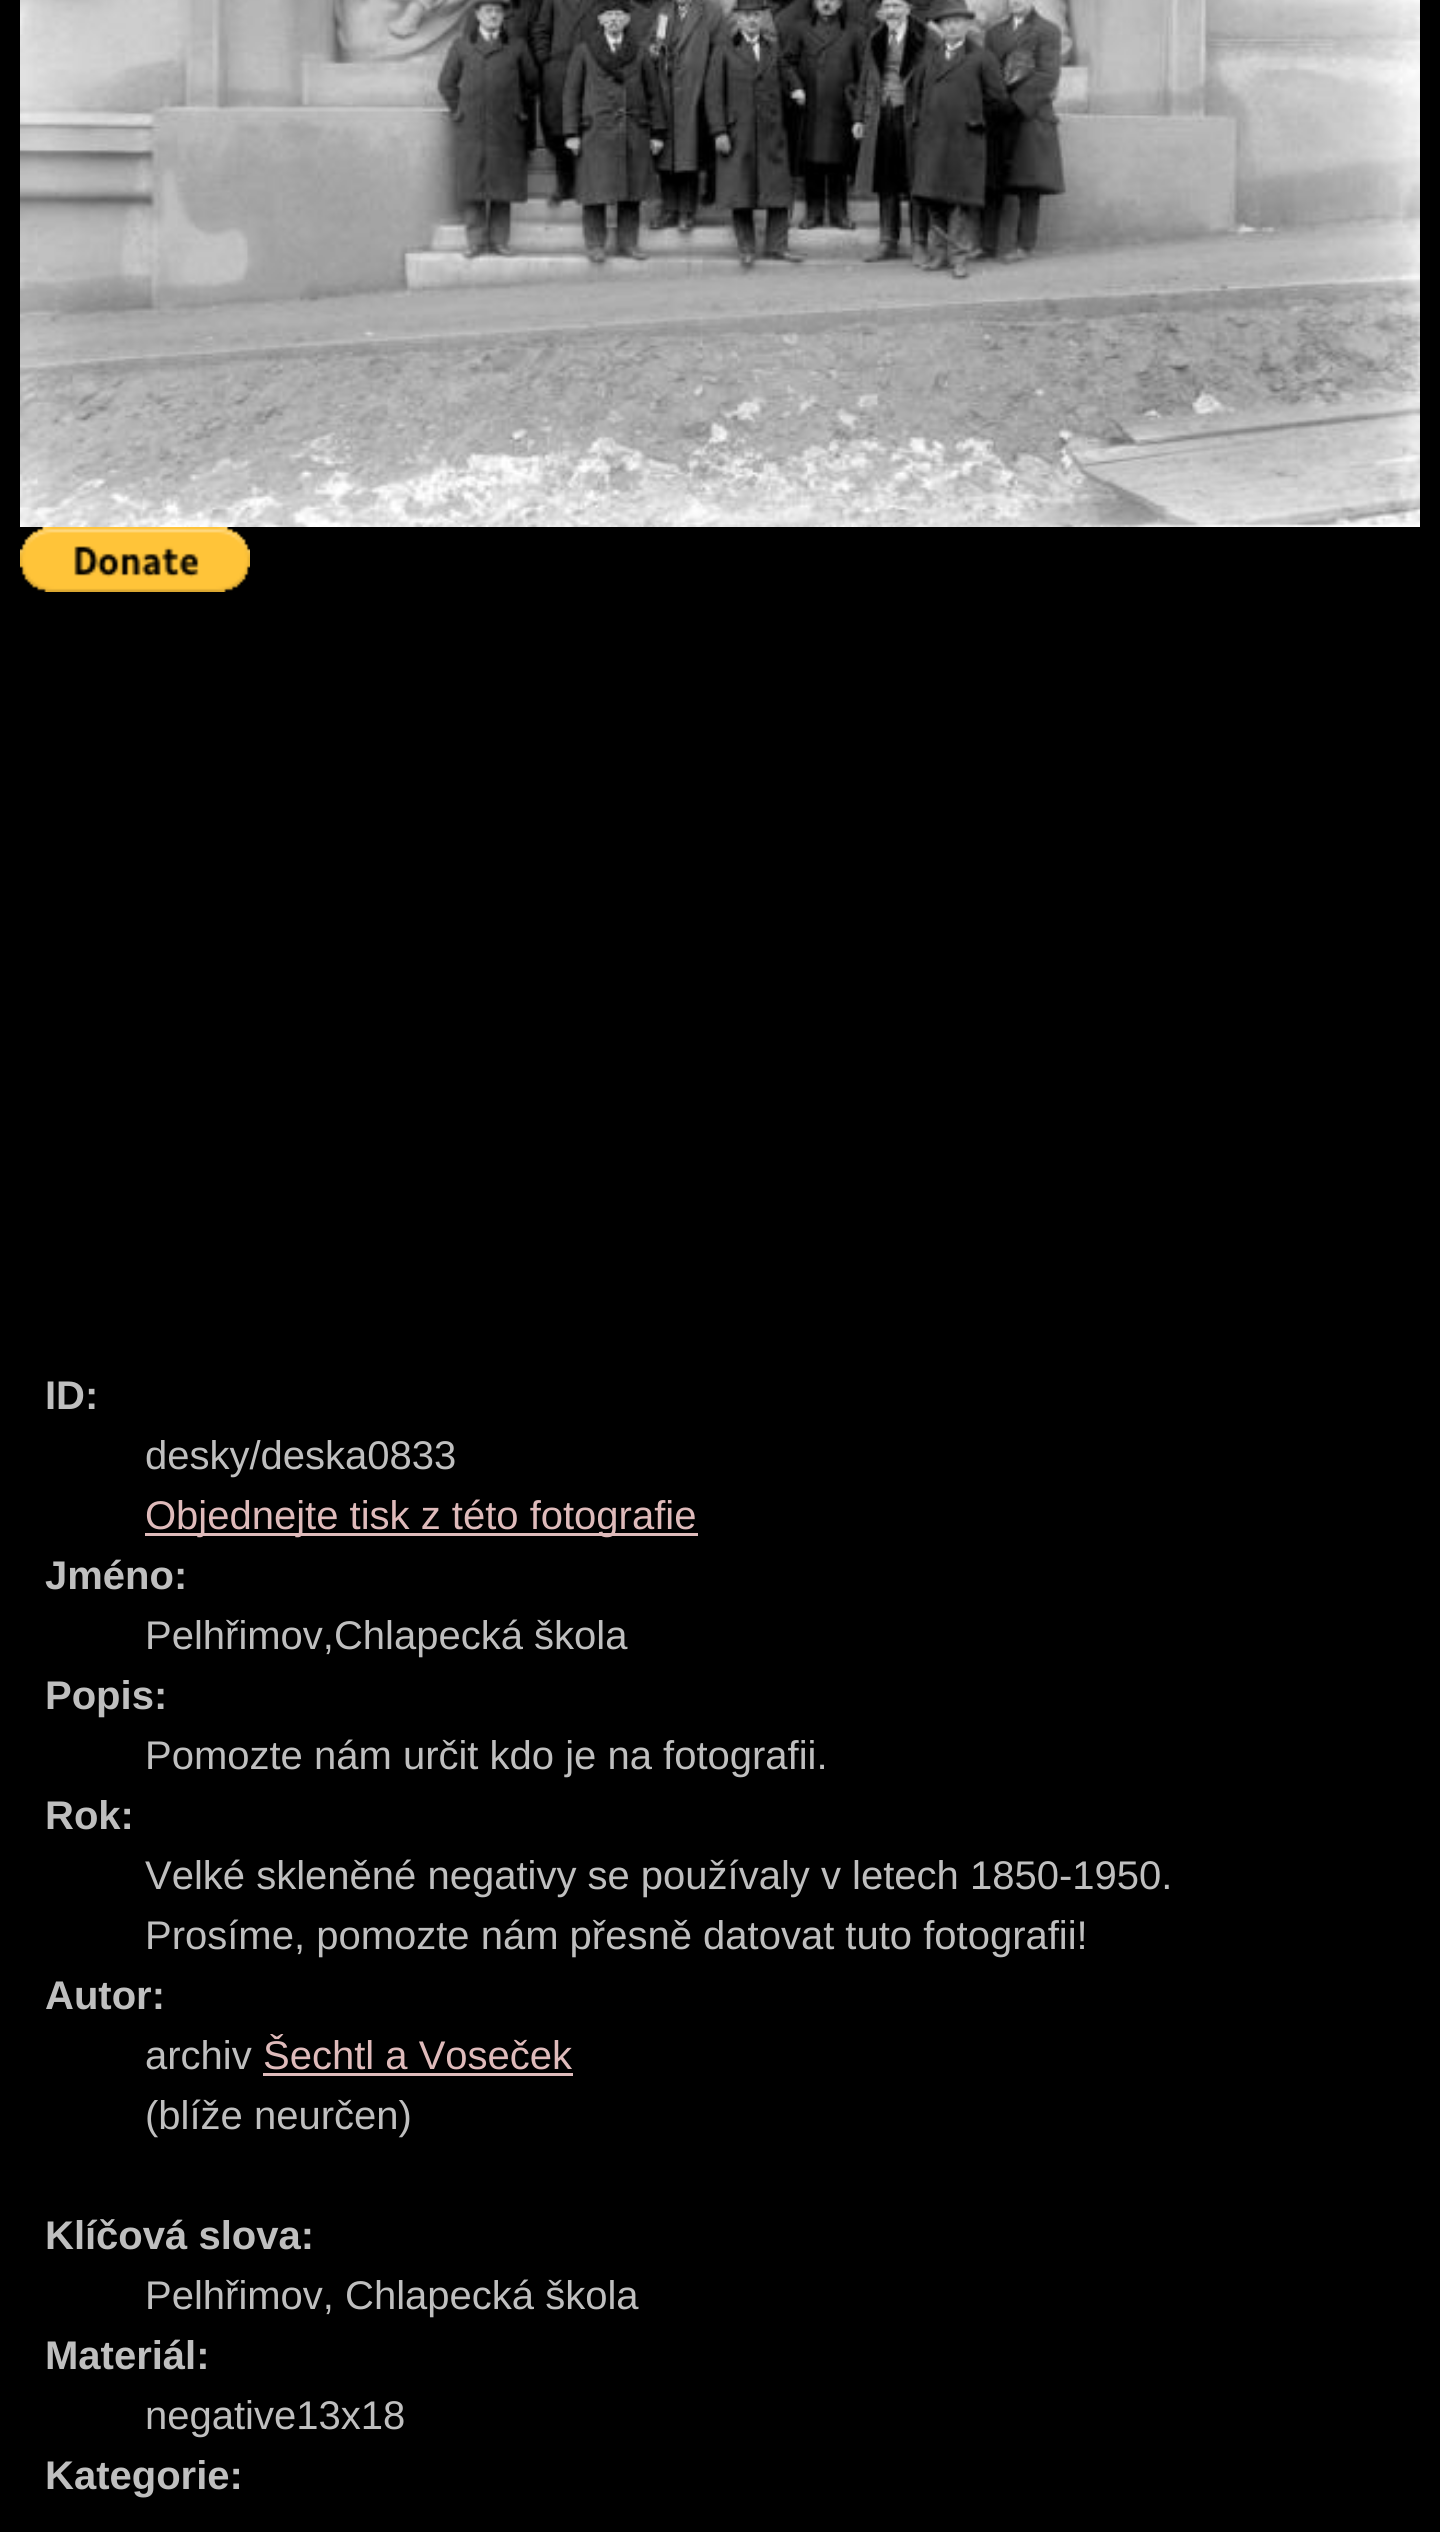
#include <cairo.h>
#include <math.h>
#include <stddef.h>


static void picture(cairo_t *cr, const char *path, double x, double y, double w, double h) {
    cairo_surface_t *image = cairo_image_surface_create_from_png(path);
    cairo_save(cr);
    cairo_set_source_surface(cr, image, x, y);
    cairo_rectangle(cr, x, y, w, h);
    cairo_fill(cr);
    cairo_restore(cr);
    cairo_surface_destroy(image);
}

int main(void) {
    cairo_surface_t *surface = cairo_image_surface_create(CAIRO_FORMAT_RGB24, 1440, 2532);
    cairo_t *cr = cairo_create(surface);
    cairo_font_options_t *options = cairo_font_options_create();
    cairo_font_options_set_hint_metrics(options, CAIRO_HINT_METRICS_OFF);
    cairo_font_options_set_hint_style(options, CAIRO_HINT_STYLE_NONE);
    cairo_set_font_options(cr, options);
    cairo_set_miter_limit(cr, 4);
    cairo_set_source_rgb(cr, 0, 0, 0);
    cairo_paint(cr);
    picture(cr, "img1.png", 20, 0, 1400, 527);
    picture(cr, "img2.png", 20, 527, 230, 65);
    cairo_select_font_face(cr, "Liberation Sans", CAIRO_FONT_SLANT_NORMAL, CAIRO_FONT_WEIGHT_BOLD);
    cairo_set_font_size(cr, 40);
    cairo_set_source_rgb(cr, 0.749, 0.749, 0.749);
    cairo_move_to(cr, 45, 1409);
    cairo_show_text(cr, "ID:");
    cairo_select_font_face(cr, "Liberation Sans", CAIRO_FONT_SLANT_NORMAL, CAIRO_FONT_WEIGHT_NORMAL);
    cairo_move_to(cr, 145, 1469);
    cairo_show_text(cr, "desky/deska0833");
    cairo_set_source_rgb(cr, 0.875, 0.733, 0.733);
    cairo_rectangle(cr, 145, 1533, 553, 3);
    cairo_fill(cr);
    cairo_move_to(cr, 145, 1529);
    cairo_show_text(cr, "Objednejte tisk z této fotografie");
    cairo_select_font_face(cr, "Liberation Sans", CAIRO_FONT_SLANT_NORMAL, CAIRO_FONT_WEIGHT_BOLD);
    cairo_set_source_rgb(cr, 0.749, 0.749, 0.749);
    cairo_move_to(cr, 45, 1589);
    cairo_show_text(cr, "Jméno:");
    cairo_select_font_face(cr, "Liberation Sans", CAIRO_FONT_SLANT_NORMAL, CAIRO_FONT_WEIGHT_NORMAL);
    cairo_move_to(cr, 145, 1649);
    cairo_show_text(cr, "Pelhřimov,Chlapecká škola");
    cairo_select_font_face(cr, "Liberation Sans", CAIRO_FONT_SLANT_NORMAL, CAIRO_FONT_WEIGHT_BOLD);
    cairo_move_to(cr, 45, 1709);
    cairo_show_text(cr, "Popis:");
    cairo_select_font_face(cr, "Liberation Sans", CAIRO_FONT_SLANT_NORMAL, CAIRO_FONT_WEIGHT_NORMAL);
    cairo_move_to(cr, 145, 1769);
    cairo_show_text(cr, "Pomozte nám určit kdo je na fotografii.");
    cairo_select_font_face(cr, "Liberation Sans", CAIRO_FONT_SLANT_NORMAL, CAIRO_FONT_WEIGHT_BOLD);
    cairo_move_to(cr, 45, 1829);
    cairo_show_text(cr, "Rok:");
    cairo_select_font_face(cr, "Liberation Sans", CAIRO_FONT_SLANT_NORMAL, CAIRO_FONT_WEIGHT_NORMAL);
    cairo_move_to(cr, 145, 1889);
    cairo_show_text(cr, "Velké skleněné negativy se používaly v letech 1850-1950.");
    cairo_move_to(cr, 145, 1949);
    cairo_show_text(cr, "Prosíme, pomozte nám přesně datovat tuto fotografii!");
    cairo_select_font_face(cr, "Liberation Sans", CAIRO_FONT_SLANT_NORMAL, CAIRO_FONT_WEIGHT_BOLD);
    cairo_move_to(cr, 45, 2009);
    cairo_show_text(cr, "Autor:");
    cairo_select_font_face(cr, "Liberation Sans", CAIRO_FONT_SLANT_NORMAL, CAIRO_FONT_WEIGHT_NORMAL);
    cairo_move_to(cr, 145, 2069);
    cairo_show_text(cr, "archiv");
    cairo_set_source_rgb(cr, 0.875, 0.733, 0.733);
    cairo_move_to(cr, 263, 2069);
    cairo_show_text(cr, "Šechtl a Voseček");
    cairo_rectangle(cr, 263, 2073, 310, 3);
    cairo_fill(cr);
    cairo_set_source_rgb(cr, 0.749, 0.749, 0.749);
    cairo_move_to(cr, 145, 2129);
    cairo_show_text(cr, "(blíže neurčen)");
    cairo_select_font_face(cr, "Liberation Sans", CAIRO_FONT_SLANT_NORMAL, CAIRO_FONT_WEIGHT_BOLD);
    cairo_move_to(cr, 45, 2249);
    cairo_show_text(cr, "Klíčová slova:");
    cairo_select_font_face(cr, "Liberation Sans", CAIRO_FONT_SLANT_NORMAL, CAIRO_FONT_WEIGHT_NORMAL);
    cairo_move_to(cr, 145, 2309);
    cairo_show_text(cr, "Pelhřimov, Chlapecká škola");
    cairo_select_font_face(cr, "Liberation Sans", CAIRO_FONT_SLANT_NORMAL, CAIRO_FONT_WEIGHT_BOLD);
    cairo_move_to(cr, 45, 2369);
    cairo_show_text(cr, "Materiál:");
    cairo_select_font_face(cr, "Liberation Sans", CAIRO_FONT_SLANT_NORMAL, CAIRO_FONT_WEIGHT_NORMAL);
    cairo_move_to(cr, 145, 2429);
    cairo_show_text(cr, "negative13x18");
    cairo_select_font_face(cr, "Liberation Sans", CAIRO_FONT_SLANT_NORMAL, CAIRO_FONT_WEIGHT_BOLD);
    cairo_move_to(cr, 45, 2489);
    cairo_show_text(cr, "Kategorie:");
    cairo_surface_write_to_png(surface, "page.png");
    cairo_font_options_destroy(options);
    cairo_destroy(cr);
    cairo_surface_destroy(surface);
    return 0;
}
